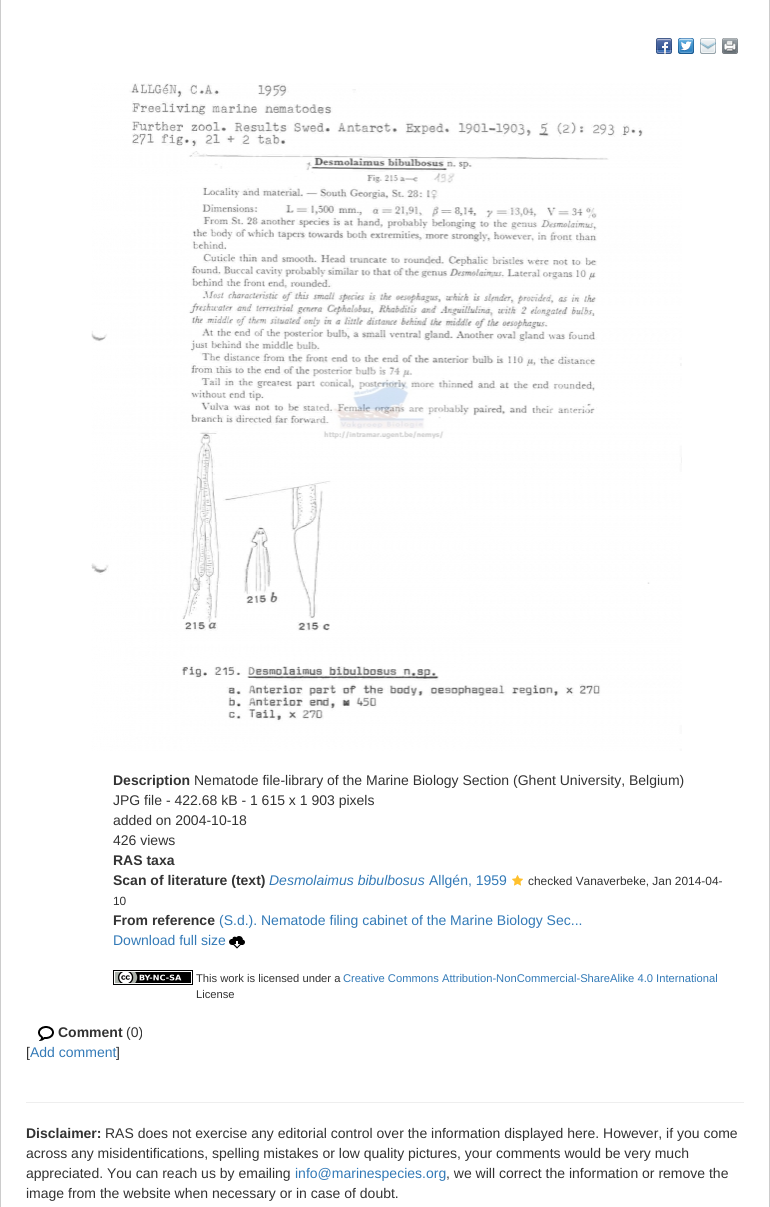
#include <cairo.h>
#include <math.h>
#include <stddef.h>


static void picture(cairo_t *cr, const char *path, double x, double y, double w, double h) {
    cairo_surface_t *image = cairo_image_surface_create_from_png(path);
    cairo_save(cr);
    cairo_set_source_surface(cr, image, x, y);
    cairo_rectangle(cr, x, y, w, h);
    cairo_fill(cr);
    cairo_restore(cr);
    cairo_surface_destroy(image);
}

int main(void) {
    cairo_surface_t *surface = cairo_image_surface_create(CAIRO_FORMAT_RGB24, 770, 1207);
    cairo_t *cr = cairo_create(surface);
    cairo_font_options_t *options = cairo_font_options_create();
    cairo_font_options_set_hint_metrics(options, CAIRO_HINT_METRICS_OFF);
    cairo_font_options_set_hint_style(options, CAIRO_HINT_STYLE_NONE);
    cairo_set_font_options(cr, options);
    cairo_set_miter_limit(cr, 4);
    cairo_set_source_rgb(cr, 1, 1, 1);
    cairo_paint(cr);
    cairo_rectangle(cr, 0.5, -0.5, 769, 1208);
    cairo_set_source_rgb(cr, 0.8, 0.8, 0.8);
    cairo_set_line_width(cr, 1);
    cairo_stroke(cr);
    picture(cr, "img1.png", 656, 38, 16, 16);
    picture(cr, "img2.png", 678, 38, 16, 16);
    picture(cr, "img3.png", 700, 38, 16, 16);
    picture(cr, "img4.png", 722, 38, 16, 16);
    picture(cr, "img5.png", 91, 83, 591, 668);
    cairo_select_font_face(cr, "Liberation Sans", CAIRO_FONT_SLANT_NORMAL, CAIRO_FONT_WEIGHT_BOLD);
    cairo_set_font_size(cr, 14);
    cairo_set_source_rgb(cr, 0.2, 0.2, 0.2);
    cairo_move_to(cr, 113, 785);
    cairo_show_text(cr, "Description");
    cairo_select_font_face(cr, "Liberation Sans", CAIRO_FONT_SLANT_NORMAL, CAIRO_FONT_WEIGHT_NORMAL);
    cairo_move_to(cr, 194, 785);
    cairo_show_text(cr, "Nematode file-library of the Marine Biology Section (Ghent University, Belgium)");
    cairo_move_to(cr, 113, 805);
    cairo_show_text(cr, "JPG file - 422.68 kB - 1 615 x 1 903 pixels");
    cairo_move_to(cr, 113, 825);
    cairo_show_text(cr, "added on 2004-10-18");
    cairo_move_to(cr, 113, 845);
    cairo_show_text(cr, "426 views");
    cairo_select_font_face(cr, "Liberation Sans", CAIRO_FONT_SLANT_NORMAL, CAIRO_FONT_WEIGHT_BOLD);
    cairo_move_to(cr, 113, 865);
    cairo_show_text(cr, "RAS taxa");
    cairo_move_to(cr, 113, 885);
    cairo_show_text(cr, "Scan of literature (text)");
    cairo_select_font_face(cr, "Liberation Sans", CAIRO_FONT_SLANT_ITALIC, CAIRO_FONT_WEIGHT_NORMAL);
    cairo_set_source_rgb(cr, 0.2, 0.478, 0.718);
    cairo_move_to(cr, 269, 885);
    cairo_show_text(cr, "Desmolaimus bibulbosus");
    cairo_select_font_face(cr, "Liberation Sans", CAIRO_FONT_SLANT_NORMAL, CAIRO_FONT_WEIGHT_NORMAL);
    cairo_move_to(cr, 429, 885);
    cairo_show_text(cr, "Allgén, 1959");
    picture(cr, "img6.png", 512, 875, 11, 11);
    cairo_set_font_size(cr, 11.9);
    cairo_set_source_rgb(cr, 0.2, 0.2, 0.2);
    cairo_move_to(cr, 528, 885);
    cairo_show_text(cr, "checked Vanaverbeke, Jan 2014-04-");
    cairo_move_to(cr, 113, 905);
    cairo_show_text(cr, "10");
    cairo_select_font_face(cr, "Liberation Sans", CAIRO_FONT_SLANT_NORMAL, CAIRO_FONT_WEIGHT_BOLD);
    cairo_set_font_size(cr, 14);
    cairo_move_to(cr, 113, 925);
    cairo_show_text(cr, "From reference");
    cairo_select_font_face(cr, "Liberation Sans", CAIRO_FONT_SLANT_NORMAL, CAIRO_FONT_WEIGHT_NORMAL);
    cairo_set_source_rgb(cr, 0.2, 0.478, 0.718);
    cairo_move_to(cr, 219, 925);
    cairo_show_text(cr, "(S.d.). Nematode filing cabinet of the Marine Biology Sec...");
    cairo_move_to(cr, 113, 945);
    cairo_show_text(cr, "Download full size");
    picture(cr, "img7.png", 229, 936, 16, 13);
    picture(cr, "img8.png", 113, 970, 80, 15);
    cairo_set_font_size(cr, 11.2);
    cairo_set_source_rgb(cr, 0.2, 0.2, 0.2);
    cairo_move_to(cr, 196, 982);
    cairo_show_text(cr, "This work is licensed under a");
    cairo_set_source_rgb(cr, 0.2, 0.478, 0.718);
    cairo_move_to(cr, 343, 982);
    cairo_show_text(cr, "Creative Commons Attribution-NonCommercial-ShareAlike 4.0 International");
    cairo_set_source_rgb(cr, 0.2, 0.2, 0.2);
    cairo_move_to(cr, 196, 998);
    cairo_show_text(cr, "License");
    picture(cr, "img9.png", 38, 1026, 16, 15);
    cairo_select_font_face(cr, "Liberation Sans", CAIRO_FONT_SLANT_NORMAL, CAIRO_FONT_WEIGHT_BOLD);
    cairo_set_font_size(cr, 14);
    cairo_move_to(cr, 58, 1037);
    cairo_show_text(cr, "Comment");
    cairo_select_font_face(cr, "Liberation Sans", CAIRO_FONT_SLANT_NORMAL, CAIRO_FONT_WEIGHT_NORMAL);
    cairo_move_to(cr, 126, 1037);
    cairo_show_text(cr, "(0)");
    cairo_move_to(cr, 26, 1057);
    cairo_show_text(cr, "[");
    cairo_set_source_rgb(cr, 0.2, 0.478, 0.718);
    cairo_move_to(cr, 30, 1057);
    cairo_show_text(cr, "Add comment");
    cairo_set_source_rgb(cr, 0.2, 0.2, 0.2);
    cairo_move_to(cr, 116, 1057);
    cairo_show_text(cr, "]");
    cairo_set_source_rgb(cr, 0.933, 0.933, 0.933);
    cairo_rectangle(cr, 26, 1102, 718, 1);
    cairo_fill(cr);
    cairo_select_font_face(cr, "Liberation Sans", CAIRO_FONT_SLANT_NORMAL, CAIRO_FONT_WEIGHT_BOLD);
    cairo_set_source_rgb(cr, 0.2, 0.2, 0.2);
    cairo_move_to(cr, 26, 1138);
    cairo_show_text(cr, "Disclaimer:");
    cairo_select_font_face(cr, "Liberation Sans", CAIRO_FONT_SLANT_NORMAL, CAIRO_FONT_WEIGHT_NORMAL);
    cairo_move_to(cr, 105, 1138);
    cairo_show_text(cr, "RAS does not exercise any editorial control over the information displayed here. However, if you come");
    cairo_move_to(cr, 26, 1158);
    cairo_show_text(cr, "across any misidentifications, spelling mistakes or low quality pictures, your comments would be very much");
    cairo_move_to(cr, 26, 1178);
    cairo_show_text(cr, "appreciated. You can reach us by emailing");
    cairo_set_source_rgb(cr, 0.2, 0.478, 0.718);
    cairo_move_to(cr, 295, 1178);
    cairo_show_text(cr, "info@marinespecies.org");
    cairo_set_source_rgb(cr, 0.2, 0.2, 0.2);
    cairo_move_to(cr, 446, 1178);
    cairo_show_text(cr, ", we will correct the information or remove the");
    cairo_move_to(cr, 26, 1198);
    cairo_show_text(cr, "image from the website when necessary or in case of doubt.");
    cairo_surface_write_to_png(surface, "page.png");
    cairo_font_options_destroy(options);
    cairo_destroy(cr);
    cairo_surface_destroy(surface);
    return 0;
}
